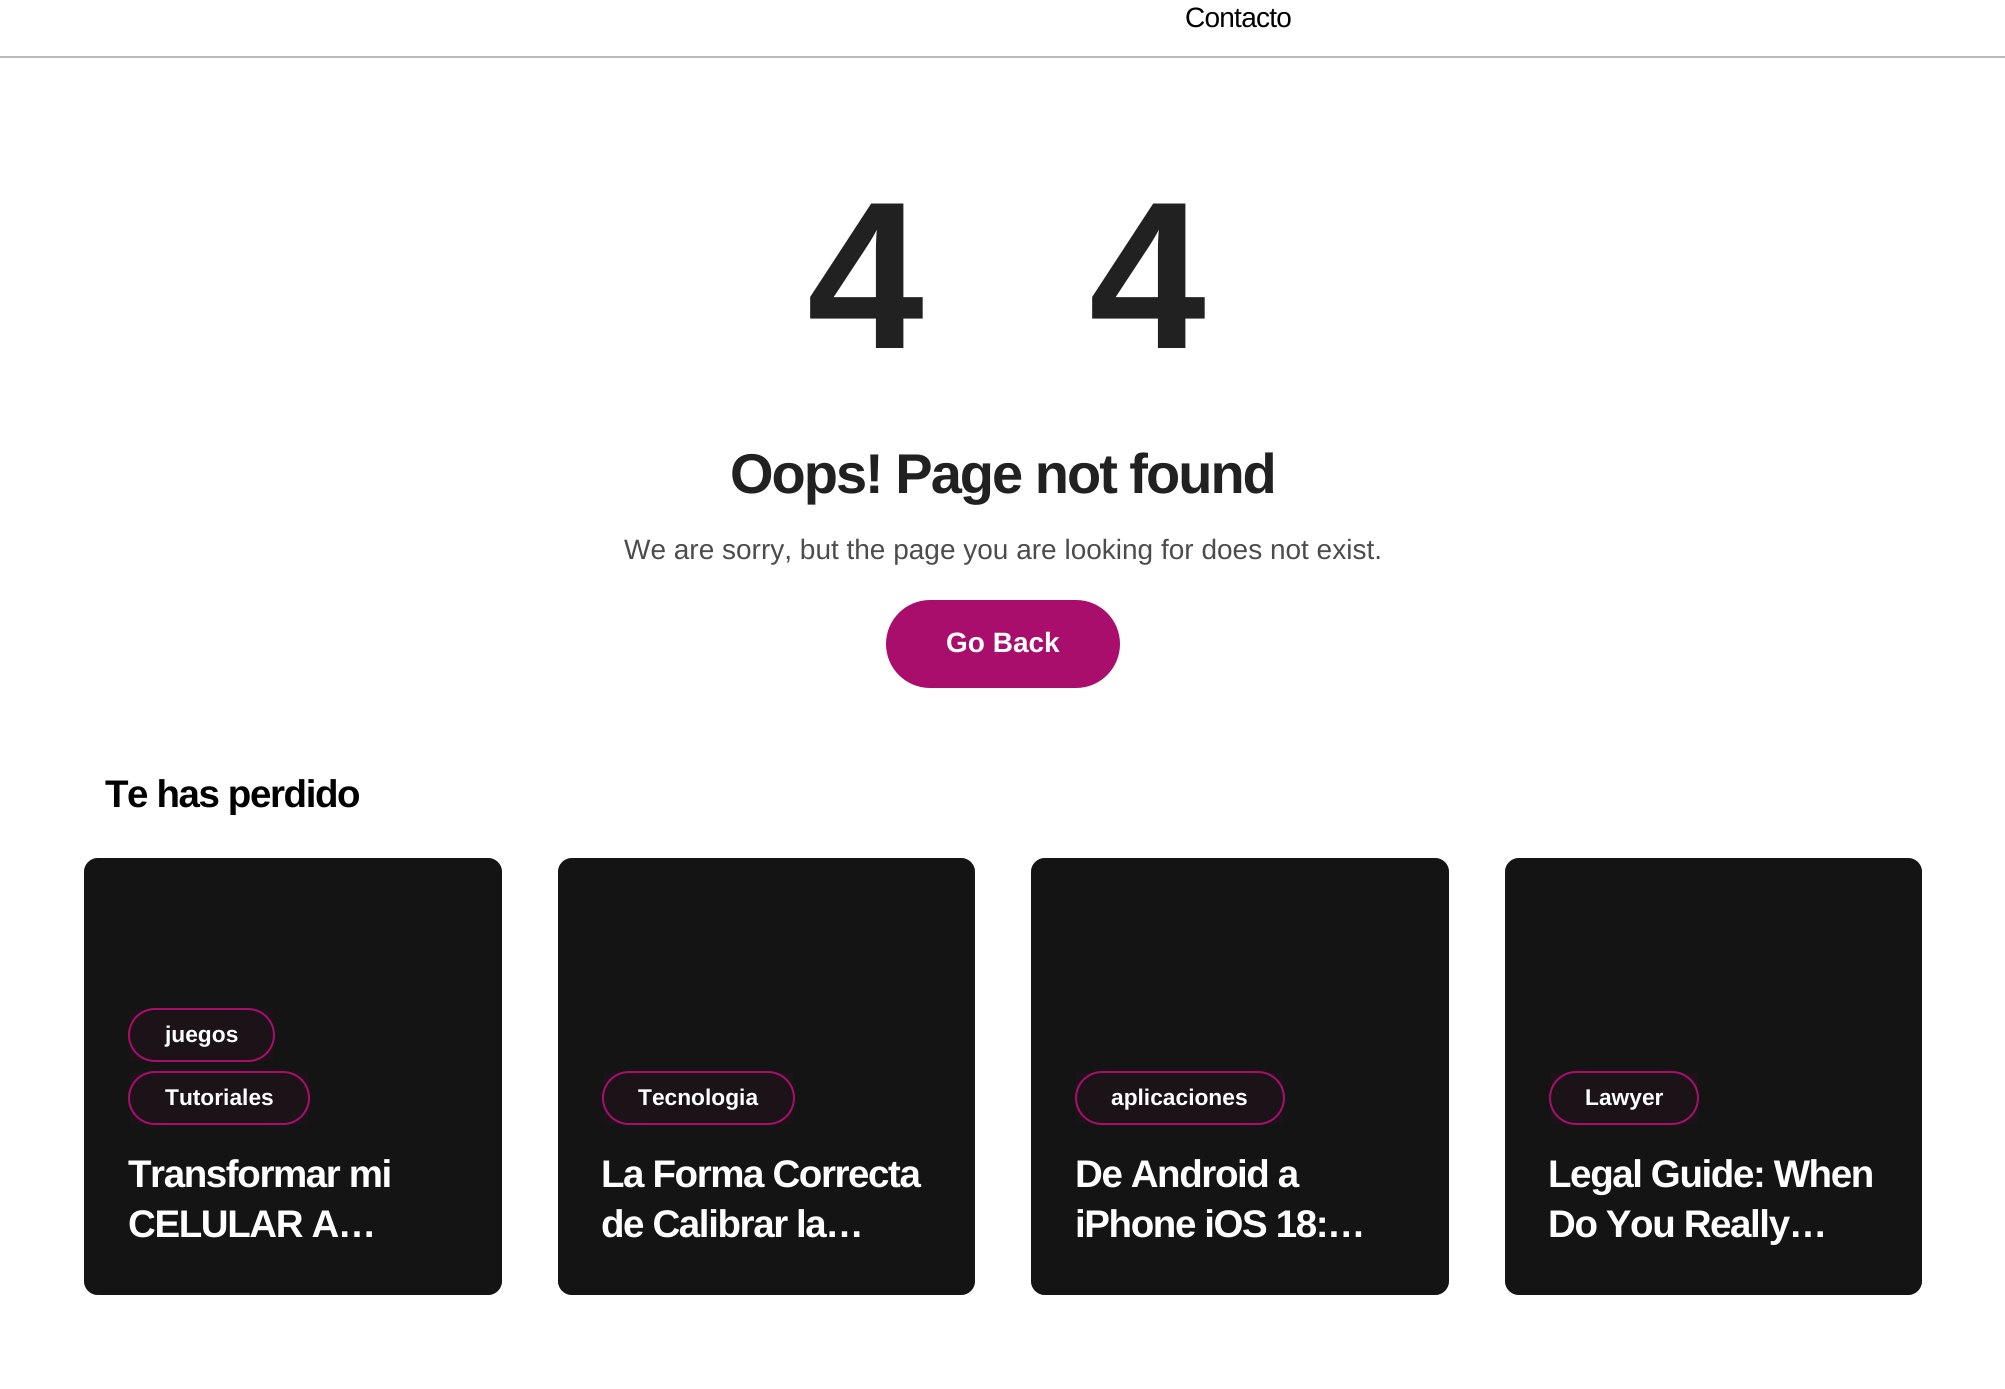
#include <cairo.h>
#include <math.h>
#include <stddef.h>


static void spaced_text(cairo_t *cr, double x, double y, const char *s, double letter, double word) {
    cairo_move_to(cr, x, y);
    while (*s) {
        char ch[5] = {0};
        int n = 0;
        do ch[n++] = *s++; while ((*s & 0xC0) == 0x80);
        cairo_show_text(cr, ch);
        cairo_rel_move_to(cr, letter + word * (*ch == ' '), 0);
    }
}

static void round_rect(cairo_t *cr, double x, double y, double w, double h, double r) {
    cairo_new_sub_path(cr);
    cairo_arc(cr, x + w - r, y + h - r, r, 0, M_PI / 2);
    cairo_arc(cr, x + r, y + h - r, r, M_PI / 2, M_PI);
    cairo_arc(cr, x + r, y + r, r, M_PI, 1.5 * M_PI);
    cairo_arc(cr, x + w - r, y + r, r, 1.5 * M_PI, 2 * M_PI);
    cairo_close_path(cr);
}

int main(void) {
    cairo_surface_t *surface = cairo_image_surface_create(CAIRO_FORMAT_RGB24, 2005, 1389);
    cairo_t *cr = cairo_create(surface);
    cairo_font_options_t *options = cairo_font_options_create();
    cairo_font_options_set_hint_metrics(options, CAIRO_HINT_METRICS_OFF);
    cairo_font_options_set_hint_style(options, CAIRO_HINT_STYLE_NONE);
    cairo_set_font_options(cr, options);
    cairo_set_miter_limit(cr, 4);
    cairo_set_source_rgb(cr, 1, 1, 1);
    cairo_paint(cr);
    cairo_set_source_rgb(cr, 0.733, 0.733, 0.733);
    cairo_rectangle(cr, 0, 56, 2005, 2);
    cairo_fill(cr);
    cairo_select_font_face(cr, "Liberation Sans", CAIRO_FONT_SLANT_NORMAL, CAIRO_FONT_WEIGHT_NORMAL);
    cairo_set_font_size(cr, 28);
    cairo_set_source_rgb(cr, 0, 0, 0);
    spaced_text(cr, 1185, 27, "Contacto", -0.75, 0);
    cairo_select_font_face(cr, "Liberation Sans", CAIRO_FONT_SLANT_NORMAL, CAIRO_FONT_WEIGHT_BOLD);
    cairo_set_font_size(cr, 210);
    cairo_set_source_rgb(cr, 0.129, 0.129, 0.129);
    spaced_text(cr, 807, 348, "4", -8, 0);
    spaced_text(cr, 1089, 348, "4", -8, 0);
    cairo_set_font_size(cr, 56);
    spaced_text(cr, 730, 493, "Oops! Page not found", -2, 0);
    cairo_select_font_face(cr, "Liberation Sans", CAIRO_FONT_SLANT_NORMAL, CAIRO_FONT_WEIGHT_NORMAL);
    cairo_set_font_size(cr, 28);
    cairo_set_source_rgb(cr, 0.298, 0.298, 0.298);
    cairo_move_to(cr, 624, 559);
    cairo_show_text(cr, "We are sorry, but the page you are looking for does not exist.");
    cairo_set_source_rgb(cr, 0.663, 0.055, 0.427);
    round_rect(cr, 886, 600, 234, 88, 44);
    cairo_fill(cr);
    cairo_select_font_face(cr, "Liberation Sans", CAIRO_FONT_SLANT_NORMAL, CAIRO_FONT_WEIGHT_BOLD);
    cairo_set_source_rgb(cr, 1, 1, 1);
    cairo_move_to(cr, 946, 652);
    cairo_show_text(cr, "Go Back");
    cairo_set_font_size(cr, 38.5);
    cairo_set_source_rgb(cr, 0, 0, 0);
    spaced_text(cr, 105, 807, "Te has perdido", -1.4, 0);
    cairo_set_source_rgb(cr, 0.2, 0.2, 0.2);
    round_rect(cr, 84, 858, 418, 437, 14);
    cairo_fill(cr);
    cairo_set_source_rgba(cr, 0, 0, 0, 0.6);
    round_rect(cr, 84, 858, 418, 437, 14);
    cairo_fill(cr);
    round_rect(cr, 129, 1009, 145, 52, 26);
    cairo_set_source_rgb(cr, 0.663, 0.055, 0.427);
    cairo_stroke(cr);
    cairo_set_source_rgba(cr, 0.663, 0.055, 0.427, 0.05);
    cairo_rectangle(cr, 130, 1010, 143, 51);
    cairo_fill(cr);
    cairo_set_font_size(cr, 22.75);
    cairo_set_source_rgb(cr, 1, 1, 1);
    cairo_move_to(cr, 165, 1042);
    cairo_show_text(cr, "juegos");
    round_rect(cr, 129, 1072, 180, 52, 26);
    cairo_set_source_rgb(cr, 0.663, 0.055, 0.427);
    cairo_stroke(cr);
    cairo_set_source_rgba(cr, 0.663, 0.055, 0.427, 0.05);
    cairo_rectangle(cr, 130, 1073, 178, 51);
    cairo_fill(cr);
    cairo_set_source_rgb(cr, 1, 1, 1);
    cairo_move_to(cr, 165, 1105);
    cairo_show_text(cr, "Tutoriales");
    cairo_set_font_size(cr, 38.5);
    spaced_text(cr, 128, 1187, "Transformar mi", -1.4, 0);
    spaced_text(cr, 128, 1237, "CELULAR A…", -1.4, 0);
    cairo_set_source_rgb(cr, 0.2, 0.2, 0.2);
    round_rect(cr, 558, 858, 417, 437, 14);
    cairo_fill(cr);
    cairo_set_source_rgba(cr, 0, 0, 0, 0.6);
    round_rect(cr, 558, 858, 417, 437, 14);
    cairo_fill(cr);
    round_rect(cr, 603, 1072, 191, 52, 26);
    cairo_set_source_rgb(cr, 0.663, 0.055, 0.427);
    cairo_stroke(cr);
    cairo_set_source_rgba(cr, 0.663, 0.055, 0.427, 0.05);
    cairo_rectangle(cr, 604, 1073, 189, 51);
    cairo_fill(cr);
    cairo_set_font_size(cr, 22.75);
    cairo_set_source_rgb(cr, 1, 1, 1);
    cairo_move_to(cr, 638, 1105);
    cairo_show_text(cr, "Tecnologia");
    cairo_set_font_size(cr, 38.5);
    spaced_text(cr, 601, 1187, "La Forma Correcta", -1.4, 0);
    spaced_text(cr, 601, 1237, "de Calibrar la…", -1.4, 0);
    cairo_set_source_rgb(cr, 0.2, 0.2, 0.2);
    round_rect(cr, 1031, 858, 418, 437, 14);
    cairo_fill(cr);
    cairo_set_source_rgba(cr, 0, 0, 0, 0.6);
    round_rect(cr, 1031, 858, 418, 437, 14);
    cairo_fill(cr);
    round_rect(cr, 1076, 1072, 208, 52, 26);
    cairo_set_source_rgb(cr, 0.663, 0.055, 0.427);
    cairo_stroke(cr);
    cairo_set_source_rgba(cr, 0.663, 0.055, 0.427, 0.05);
    cairo_rectangle(cr, 1076, 1073, 207, 51);
    cairo_fill(cr);
    cairo_set_font_size(cr, 22.75);
    cairo_set_source_rgb(cr, 1, 1, 1);
    cairo_move_to(cr, 1111, 1105);
    cairo_show_text(cr, "aplicaciones");
    cairo_set_font_size(cr, 38.5);
    spaced_text(cr, 1075, 1187, "De Android a", -1.4, 0);
    spaced_text(cr, 1075, 1237, "iPhone iOS 18:…", -1.4, 0);
    cairo_set_source_rgb(cr, 0.2, 0.2, 0.2);
    round_rect(cr, 1505, 858, 417, 437, 14);
    cairo_fill(cr);
    cairo_set_source_rgba(cr, 0, 0, 0, 0.6);
    round_rect(cr, 1505, 858, 417, 437, 14);
    cairo_fill(cr);
    round_rect(cr, 1550, 1072, 148, 52, 26);
    cairo_set_source_rgb(cr, 0.663, 0.055, 0.427);
    cairo_stroke(cr);
    cairo_set_source_rgba(cr, 0.663, 0.055, 0.427, 0.05);
    cairo_rectangle(cr, 1551, 1073, 147, 51);
    cairo_fill(cr);
    cairo_set_font_size(cr, 22.75);
    cairo_set_source_rgb(cr, 1, 1, 1);
    cairo_move_to(cr, 1585, 1105);
    cairo_show_text(cr, "Lawyer");
    cairo_set_font_size(cr, 38.5);
    spaced_text(cr, 1548, 1187, "Legal Guide: When", -1.4, 0);
    spaced_text(cr, 1548, 1237, "Do You Really…", -1.4, 0);
    cairo_surface_write_to_png(surface, "page.png");
    cairo_font_options_destroy(options);
    cairo_destroy(cr);
    cairo_surface_destroy(surface);
    return 0;
}
